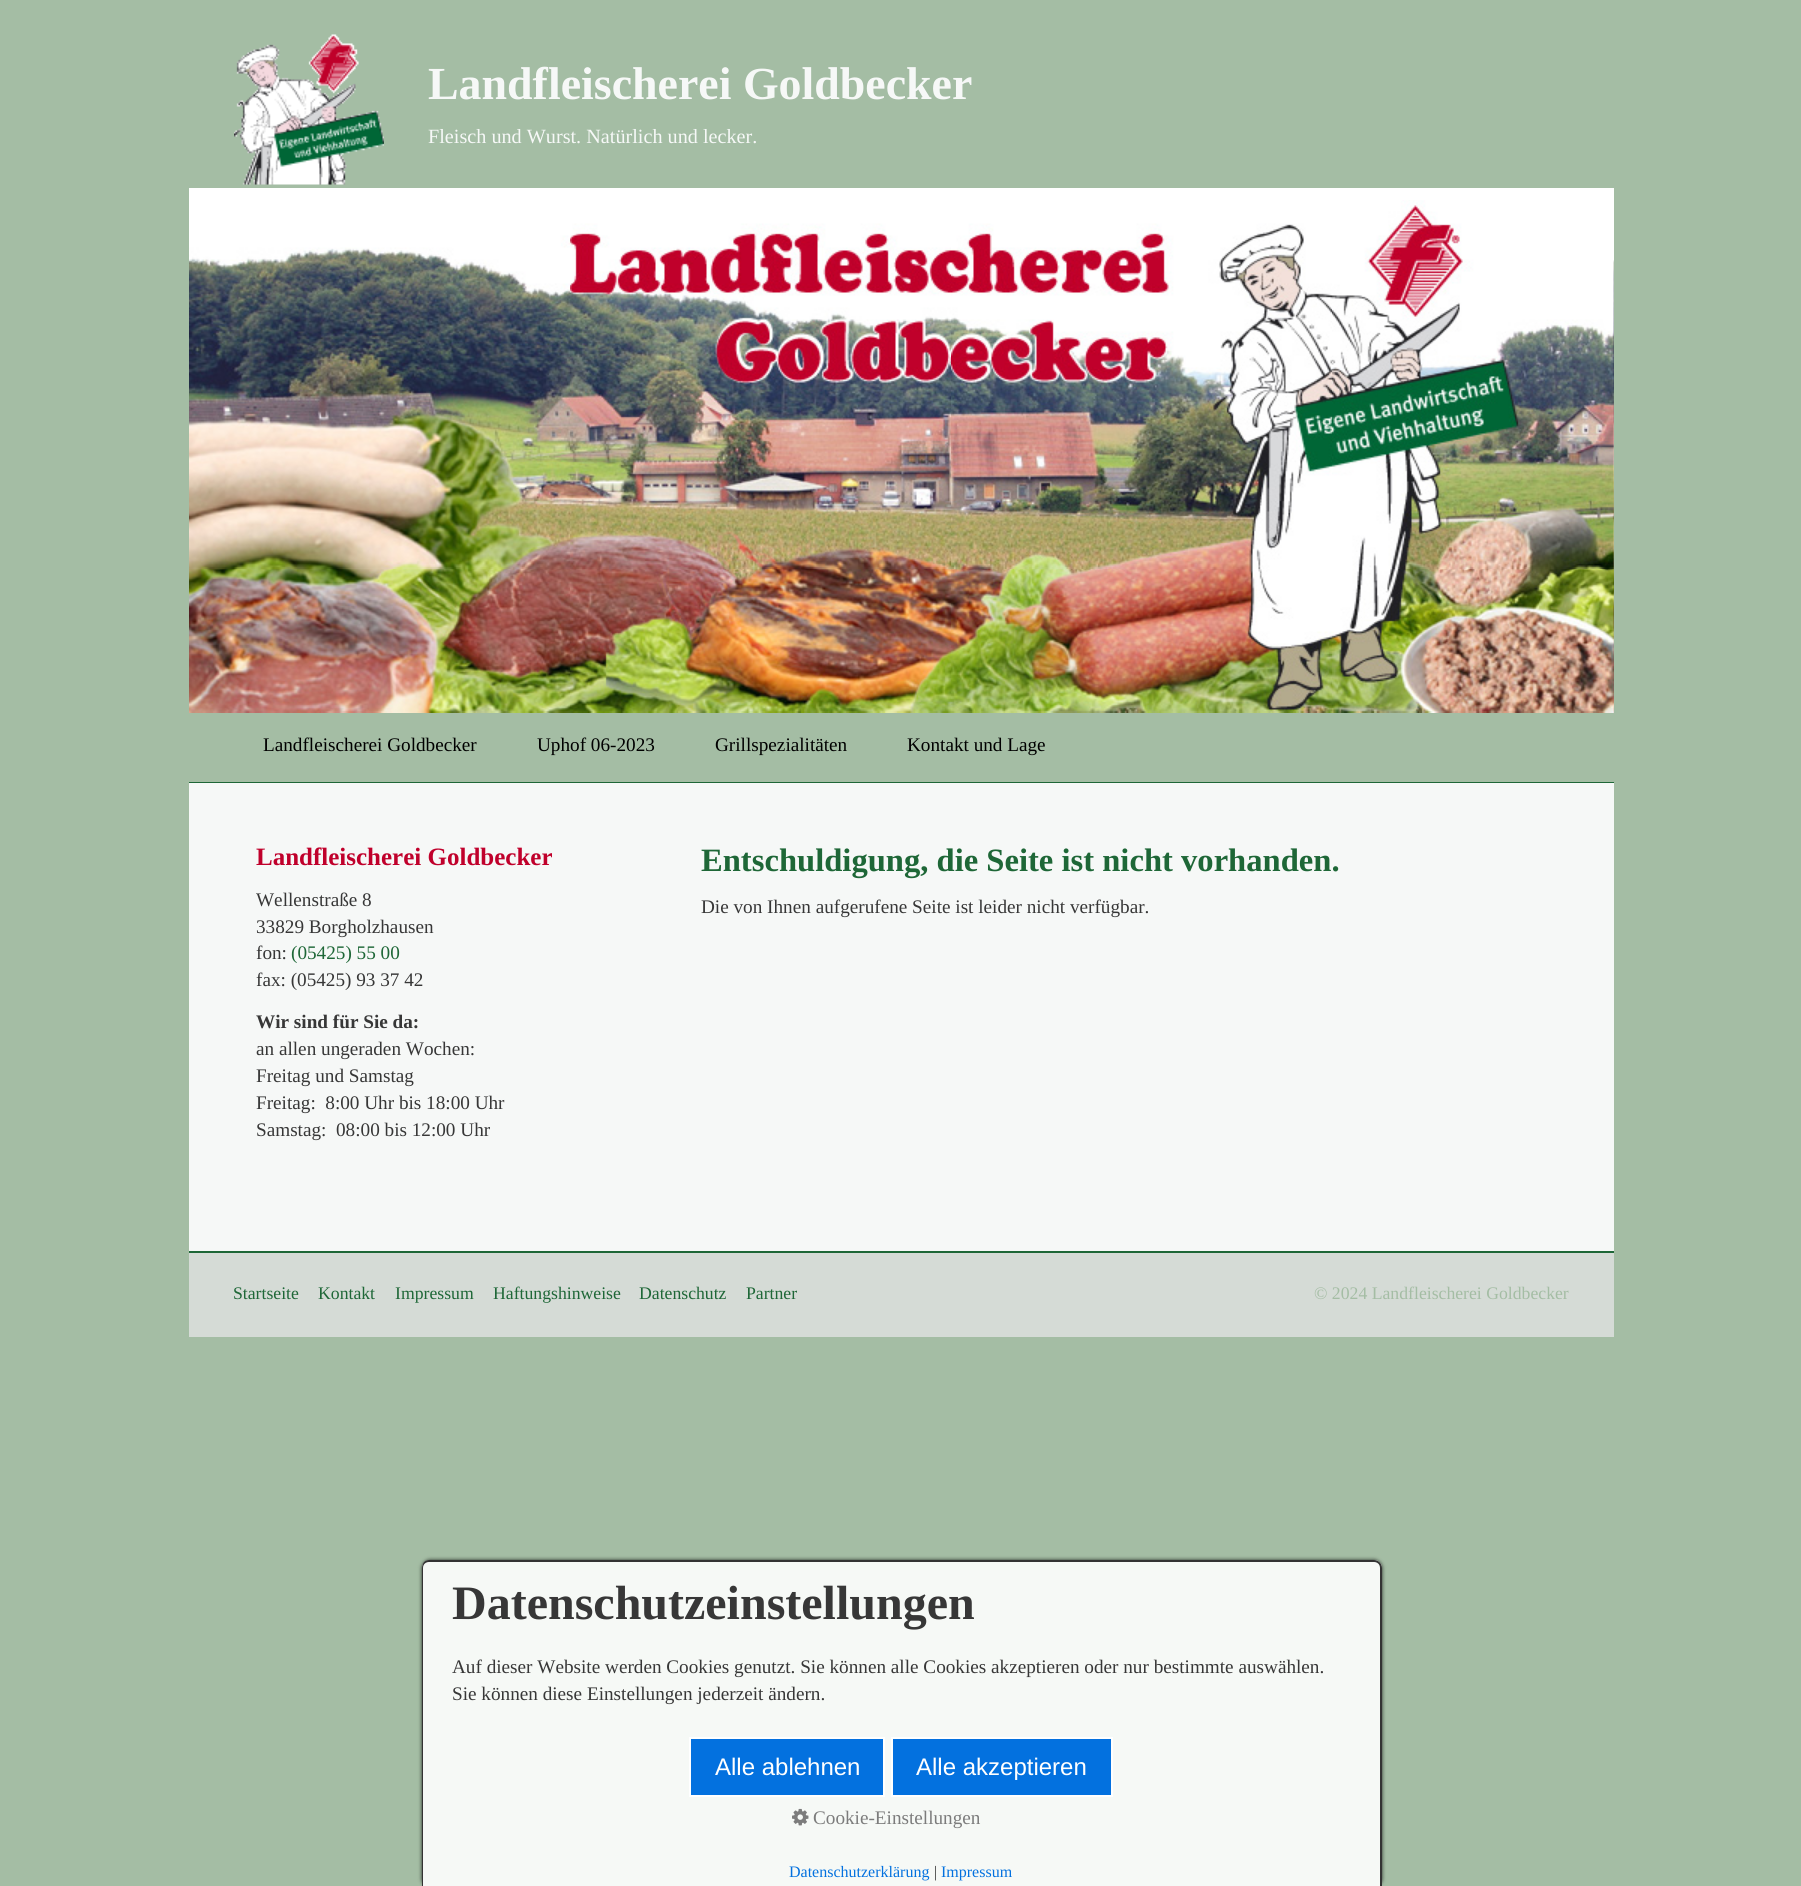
#include <cairo.h>
#include <math.h>
#include <stddef.h>


static void round_rect(cairo_t *cr, double x, double y, double w, double h, double r) {
    cairo_new_sub_path(cr);
    cairo_arc(cr, x + w - r, y + h - r, r, 0, M_PI / 2);
    cairo_arc(cr, x + r, y + h - r, r, M_PI / 2, M_PI);
    cairo_arc(cr, x + r, y + r, r, M_PI, 1.5 * M_PI);
    cairo_arc(cr, x + w - r, y + r, r, 1.5 * M_PI, 2 * M_PI);
    cairo_close_path(cr);
}

static void shadow(cairo_t *cr, double x, double y, double w, double h, double r, double blur, double alpha) {
    cairo_push_group_with_content(cr, CAIRO_CONTENT_ALPHA);
    cairo_set_operator(cr, CAIRO_OPERATOR_SOURCE);
    for (int i = 15; i >= -15 && fmin(w, h) + blur * i / 3 > 0; i -= 2) {
        double e = blur * i / 6;
        cairo_set_source_rgba(cr, 0, 0, 0, alpha * erfc((i - 1) / 8.5) / 2);
        round_rect(cr, x - e, y - e, w + 2 * e, h + 2 * e, fmax(0, fmin(r + e + blur * .6, fmin(w, h) / 2 + e)));
        cairo_fill(cr);
    }
    cairo_pattern_t *soft = cairo_pop_group(cr);
    cairo_mask(cr, soft);
    cairo_pattern_destroy(soft);
}

static void picture(cairo_t *cr, const char *path, double x, double y, double w, double h) {
    cairo_surface_t *image = cairo_image_surface_create_from_png(path);
    cairo_save(cr);
    cairo_set_source_surface(cr, image, x, y);
    cairo_rectangle(cr, x, y, w, h);
    cairo_fill(cr);
    cairo_restore(cr);
    cairo_surface_destroy(image);
}

int main(void) {
    cairo_surface_t *surface = cairo_image_surface_create(CAIRO_FORMAT_RGB24, 1801, 1886);
    cairo_t *cr = cairo_create(surface);
    cairo_font_options_t *options = cairo_font_options_create();
    cairo_font_options_set_hint_metrics(options, CAIRO_HINT_METRICS_OFF);
    cairo_font_options_set_hint_style(options, CAIRO_HINT_STYLE_NONE);
    cairo_set_font_options(cr, options);
    cairo_set_miter_limit(cr, 4);
    cairo_set_source_rgb(cr, 0.643, 0.741, 0.643);
    cairo_paint(cr);
    picture(cr, "img1.png", 234, 34, 150, 151);
    cairo_select_font_face(cr, "Liberation Serif", CAIRO_FONT_SLANT_NORMAL, CAIRO_FONT_WEIGHT_BOLD);
    cairo_set_font_size(cr, 45.9);
    cairo_set_source_rgb(cr, 0.961, 0.969, 0.965);
    cairo_move_to(cr, 428, 99);
    cairo_show_text(cr, "Landfleischerei Goldbecker");
    cairo_select_font_face(cr, "Liberation Serif", CAIRO_FONT_SLANT_NORMAL, CAIRO_FONT_WEIGHT_NORMAL);
    cairo_set_font_size(cr, 20.2);
    cairo_move_to(cr, 428, 143);
    cairo_show_text(cr, "Fleisch und Wurst. Natürlich und lecker.");
    cairo_set_source_rgb(cr, 1, 1, 1);
    cairo_rectangle(cr, 189, 188, 1425, 12);
    cairo_fill(cr);
    picture(cr, "img2.png", 189, 200, 1425, 513);
    picture(cr, "img3.png", 1613, 260, 1, 453);
    cairo_set_source_rgb(cr, 0.118, 0.404, 0.216);
    cairo_rectangle(cr, 189, 782, 1425, 1);
    cairo_fill(cr);
    cairo_set_font_size(cr, 19.2);
    cairo_set_source_rgb(cr, 0, 0, 0);
    cairo_move_to(cr, 263, 751);
    cairo_show_text(cr, "Landfleischerei Goldbecker");
    cairo_move_to(cr, 537, 751);
    cairo_show_text(cr, "Uphof 06-2023");
    cairo_move_to(cr, 715, 751);
    cairo_show_text(cr, "Grillspezialitäten");
    cairo_move_to(cr, 907, 751);
    cairo_show_text(cr, "Kontakt und Lage");
    cairo_set_source_rgb(cr, 0.961, 0.969, 0.965);
    cairo_rectangle(cr, 189, 783, 1425, 468);
    cairo_fill(cr);
    cairo_select_font_face(cr, "Liberation Serif", CAIRO_FONT_SLANT_NORMAL, CAIRO_FONT_WEIGHT_BOLD);
    cairo_set_font_size(cr, 25);
    cairo_set_source_rgb(cr, 0.753, 0, 0.169);
    cairo_move_to(cr, 256, 865);
    cairo_show_text(cr, "Landfleischerei Goldbecker");
    cairo_select_font_face(cr, "Liberation Serif", CAIRO_FONT_SLANT_NORMAL, CAIRO_FONT_WEIGHT_NORMAL);
    cairo_set_font_size(cr, 19.2);
    cairo_set_source_rgb(cr, 0.216, 0.216, 0.216);
    cairo_move_to(cr, 256, 906);
    cairo_show_text(cr, "Wellenstraße 8");
    cairo_move_to(cr, 256, 933);
    cairo_show_text(cr, "33829 Borgholzhausen");
    cairo_move_to(cr, 256, 959);
    cairo_show_text(cr, "fon:");
    cairo_set_source_rgb(cr, 0.118, 0.404, 0.216);
    cairo_move_to(cr, 291, 959);
    cairo_show_text(cr, "(05425) 55 00");
    cairo_set_source_rgb(cr, 0.216, 0.216, 0.216);
    cairo_move_to(cr, 256, 986);
    cairo_show_text(cr, "fax: (05425) 93 37 42");
    cairo_select_font_face(cr, "Liberation Serif", CAIRO_FONT_SLANT_NORMAL, CAIRO_FONT_WEIGHT_BOLD);
    cairo_move_to(cr, 256, 1028);
    cairo_show_text(cr, "Wir sind für Sie da:");
    cairo_select_font_face(cr, "Liberation Serif", CAIRO_FONT_SLANT_NORMAL, CAIRO_FONT_WEIGHT_NORMAL);
    cairo_move_to(cr, 256, 1055);
    cairo_show_text(cr, "an allen ungeraden Wochen:");
    cairo_move_to(cr, 256, 1082);
    cairo_show_text(cr, "Freitag und Samstag");
    cairo_move_to(cr, 256, 1109);
    cairo_show_text(cr, "Freitag:  8:00 Uhr bis 18:00 Uhr");
    cairo_move_to(cr, 256, 1136);
    cairo_show_text(cr, "Samstag:  08:00 bis 12:00 Uhr");
    cairo_select_font_face(cr, "Liberation Serif", CAIRO_FONT_SLANT_NORMAL, CAIRO_FONT_WEIGHT_BOLD);
    cairo_set_font_size(cr, 32.6);
    cairo_set_source_rgb(cr, 0.118, 0.404, 0.216);
    cairo_move_to(cr, 701, 871);
    cairo_show_text(cr, "Entschuldigung, die Seite ist nicht vorhanden.");
    cairo_select_font_face(cr, "Liberation Serif", CAIRO_FONT_SLANT_NORMAL, CAIRO_FONT_WEIGHT_NORMAL);
    cairo_set_font_size(cr, 19.2);
    cairo_set_source_rgb(cr, 0.216, 0.216, 0.216);
    cairo_move_to(cr, 701, 913);
    cairo_show_text(cr, "Die von Ihnen aufgerufene Seite ist leider nicht verfügbar.");
    cairo_set_source_rgb(cr, 0.835, 0.859, 0.839);
    cairo_rectangle(cr, 189, 1253, 1425, 84);
    cairo_fill(cr);
    cairo_set_source_rgb(cr, 0.118, 0.404, 0.216);
    cairo_rectangle(cr, 189, 1251, 1425, 2);
    cairo_fill(cr);
    cairo_set_font_size(cr, 17.7);
    cairo_move_to(cr, 233, 1299);
    cairo_show_text(cr, "Startseite");
    cairo_move_to(cr, 318, 1299);
    cairo_show_text(cr, "Kontakt");
    cairo_move_to(cr, 395, 1299);
    cairo_show_text(cr, "Impressum");
    cairo_move_to(cr, 493, 1299);
    cairo_show_text(cr, "Haftungshinweise");
    cairo_move_to(cr, 639, 1299);
    cairo_show_text(cr, "Datenschutz");
    cairo_move_to(cr, 746, 1299);
    cairo_show_text(cr, "Partner");
    cairo_set_source_rgb(cr, 0.643, 0.741, 0.643);
    cairo_move_to(cr, 1314, 1299);
    cairo_show_text(cr, "© 2024 Landfleischerei Goldbecker");
    cairo_save(cr);
    cairo_set_fill_rule(cr, CAIRO_FILL_RULE_EVEN_ODD);
    cairo_new_path(cr);
    cairo_move_to(cr, 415, 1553);
    cairo_line_to(cr, 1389, 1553);
    cairo_line_to(cr, 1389, 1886);
    cairo_line_to(cr, 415, 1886);
    cairo_close_path(cr);
    cairo_move_to(cr, 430, 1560);
    cairo_line_to(cr, 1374, 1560);
    cairo_curve_to(cr, 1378.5, 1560, 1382, 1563.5, 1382, 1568);
    cairo_line_to(cr, 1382, 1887);
    cairo_line_to(cr, 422, 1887);
    cairo_line_to(cr, 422, 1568);
    cairo_curve_to(cr, 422, 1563.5, 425.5, 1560, 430, 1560);
    cairo_close_path(cr);
    cairo_clip(cr);
    cairo_set_source_rgb(cr, 0, 0, 0);
    shadow(cr, 422, 1560, 960, 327, 8, 2, 0.8);
    cairo_restore(cr);
    cairo_set_source_rgba(cr, 1, 1, 1, 0.9);
    cairo_new_path(cr);
    cairo_move_to(cr, 430, 1560);
    cairo_line_to(cr, 1374, 1560);
    cairo_curve_to(cr, 1378.5, 1560, 1382, 1563.5, 1382, 1568);
    cairo_line_to(cr, 1382, 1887);
    cairo_line_to(cr, 422, 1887);
    cairo_line_to(cr, 422, 1568);
    cairo_curve_to(cr, 422, 1563.5, 425.5, 1560, 430, 1560);
    cairo_close_path(cr);
    cairo_fill(cr);
    cairo_set_source_rgb(cr, 0.2, 0.2, 0.2);
    cairo_set_fill_rule(cr, CAIRO_FILL_RULE_EVEN_ODD);
    cairo_new_path(cr);
    cairo_move_to(cr, 429, 1560);
    cairo_line_to(cr, 1374, 1560);
    cairo_curve_to(cr, 1378, 1560, 1382, 1563, 1382, 1568);
    cairo_line_to(cr, 1382, 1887);
    cairo_line_to(cr, 422, 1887);
    cairo_line_to(cr, 422, 1568);
    cairo_curve_to(cr, 422, 1563, 425, 1560, 429, 1560);
    cairo_close_path(cr);
    cairo_move_to(cr, 429, 1562);
    cairo_line_to(cr, 1374, 1562);
    cairo_curve_to(cr, 1377, 1562, 1380, 1564, 1380, 1568);
    cairo_line_to(cr, 1380, 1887);
    cairo_line_to(cr, 423, 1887);
    cairo_line_to(cr, 423, 1568);
    cairo_curve_to(cr, 423, 1564, 426, 1562, 429, 1562);
    cairo_close_path(cr);
    cairo_fill(cr);
    cairo_select_font_face(cr, "Liberation Serif", CAIRO_FONT_SLANT_NORMAL, CAIRO_FONT_WEIGHT_BOLD);
    cairo_set_font_size(cr, 48);
    cairo_set_source_rgb(cr, 0.216, 0.216, 0.216);
    cairo_move_to(cr, 452, 1619);
    cairo_show_text(cr, "Datenschutzeinstellungen");
    cairo_select_font_face(cr, "Liberation Serif", CAIRO_FONT_SLANT_NORMAL, CAIRO_FONT_WEIGHT_NORMAL);
    cairo_set_font_size(cr, 19.2);
    cairo_move_to(cr, 452, 1673);
    cairo_show_text(cr, "Auf dieser Website werden Cookies genutzt. Sie können alle Cookies akzeptieren oder nur bestimmte auswählen.");
    cairo_move_to(cr, 452, 1700);
    cairo_show_text(cr, "Sie können diese Einstellungen jederzeit ändern.");
    cairo_set_source_rgb(cr, 0.012, 0.443, 0.875);
    cairo_rectangle(cr, 690, 1738, 194, 58);
    cairo_fill_preserve(cr);
    cairo_set_source_rgb(cr, 1, 1, 1);
    cairo_stroke(cr);
    cairo_select_font_face(cr, "Liberation Sans", CAIRO_FONT_SLANT_NORMAL, CAIRO_FONT_WEIGHT_NORMAL);
    cairo_set_font_size(cr, 24);
    cairo_move_to(cr, 715, 1775);
    cairo_show_text(cr, "Alle ablehnen");
    cairo_set_source_rgb(cr, 0.012, 0.443, 0.875);
    cairo_rectangle(cr, 892, 1738, 220, 58);
    cairo_fill_preserve(cr);
    cairo_set_source_rgb(cr, 1, 1, 1);
    cairo_stroke(cr);
    cairo_move_to(cr, 916, 1775);
    cairo_show_text(cr, "Alle akzeptieren");
    picture(cr, "img4.png", 792, 1808, 17, 18);
    cairo_select_font_face(cr, "Liberation Serif", CAIRO_FONT_SLANT_NORMAL, CAIRO_FONT_WEIGHT_NORMAL);
    cairo_set_font_size(cr, 19.2);
    cairo_set_source_rgb(cr, 0.486, 0.486, 0.486);
    cairo_move_to(cr, 813, 1824);
    cairo_show_text(cr, "Cookie-Einstellungen");
    cairo_set_font_size(cr, 16);
    cairo_set_source_rgb(cr, 0.012, 0.443, 0.875);
    cairo_move_to(cr, 789, 1877);
    cairo_show_text(cr, "Datenschutzerklärung");
    cairo_set_source_rgb(cr, 0.216, 0.216, 0.216);
    cairo_move_to(cr, 934, 1877);
    cairo_show_text(cr, "|");
    cairo_set_source_rgb(cr, 0.012, 0.443, 0.875);
    cairo_move_to(cr, 941, 1877);
    cairo_show_text(cr, "Impressum");
    cairo_surface_write_to_png(surface, "page.png");
    cairo_font_options_destroy(options);
    cairo_destroy(cr);
    cairo_surface_destroy(surface);
    return 0;
}
